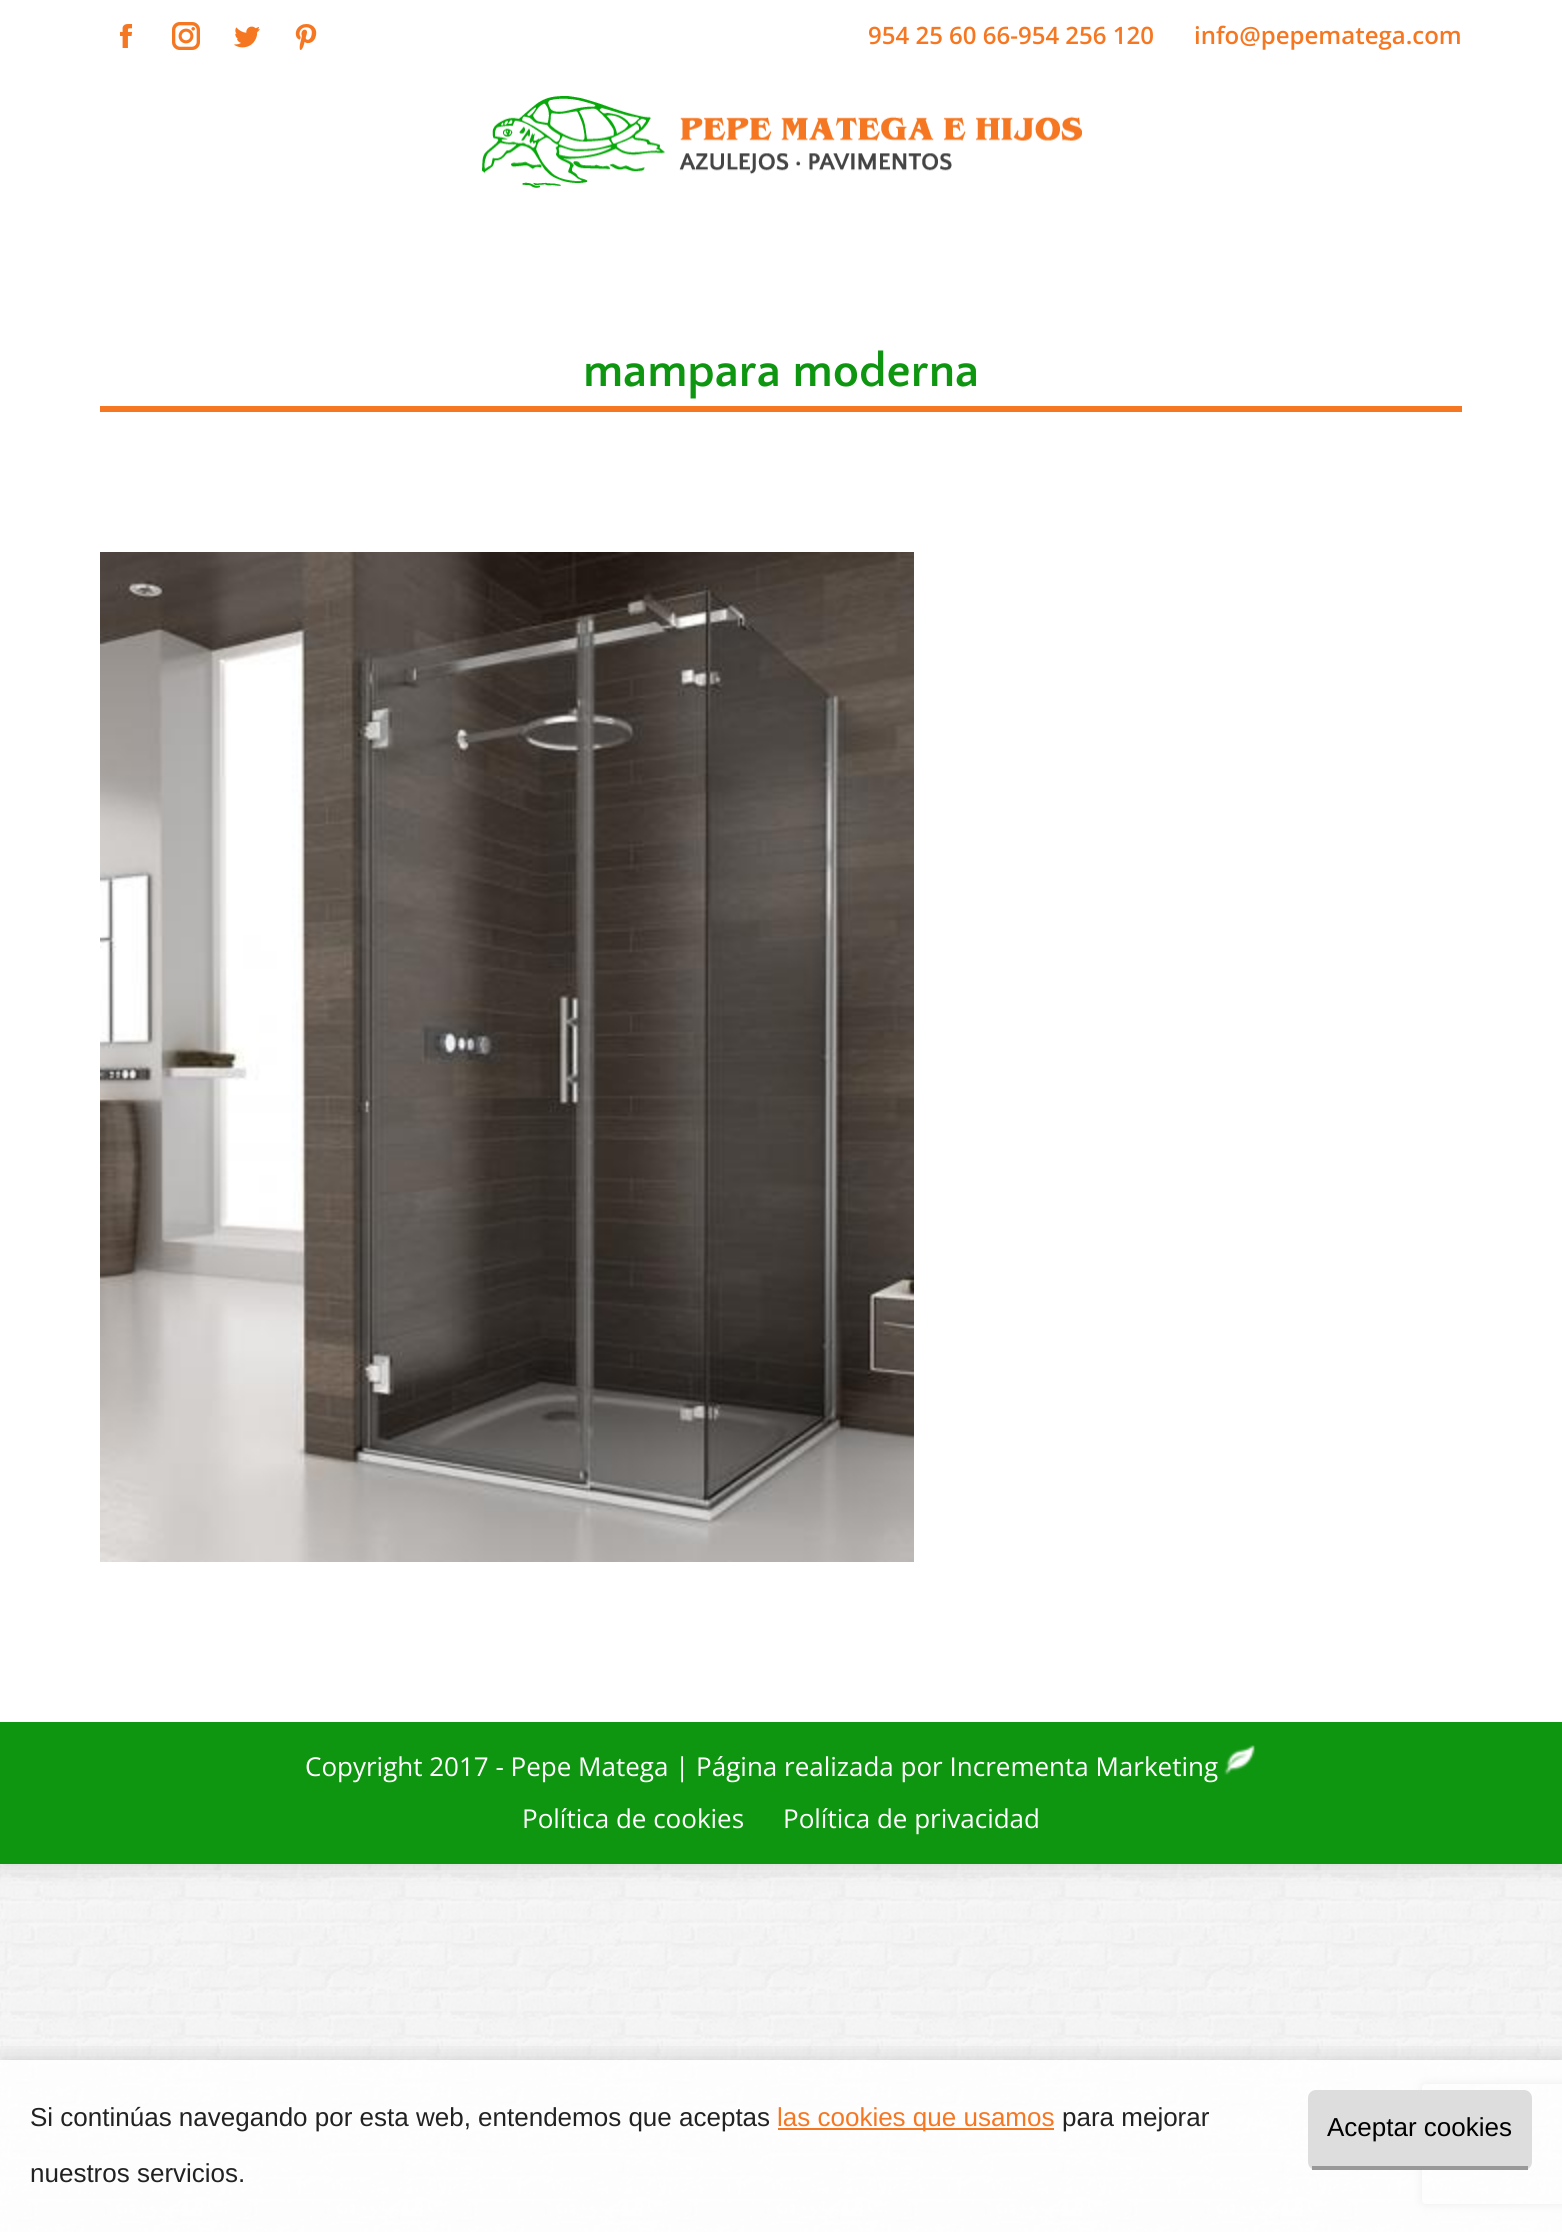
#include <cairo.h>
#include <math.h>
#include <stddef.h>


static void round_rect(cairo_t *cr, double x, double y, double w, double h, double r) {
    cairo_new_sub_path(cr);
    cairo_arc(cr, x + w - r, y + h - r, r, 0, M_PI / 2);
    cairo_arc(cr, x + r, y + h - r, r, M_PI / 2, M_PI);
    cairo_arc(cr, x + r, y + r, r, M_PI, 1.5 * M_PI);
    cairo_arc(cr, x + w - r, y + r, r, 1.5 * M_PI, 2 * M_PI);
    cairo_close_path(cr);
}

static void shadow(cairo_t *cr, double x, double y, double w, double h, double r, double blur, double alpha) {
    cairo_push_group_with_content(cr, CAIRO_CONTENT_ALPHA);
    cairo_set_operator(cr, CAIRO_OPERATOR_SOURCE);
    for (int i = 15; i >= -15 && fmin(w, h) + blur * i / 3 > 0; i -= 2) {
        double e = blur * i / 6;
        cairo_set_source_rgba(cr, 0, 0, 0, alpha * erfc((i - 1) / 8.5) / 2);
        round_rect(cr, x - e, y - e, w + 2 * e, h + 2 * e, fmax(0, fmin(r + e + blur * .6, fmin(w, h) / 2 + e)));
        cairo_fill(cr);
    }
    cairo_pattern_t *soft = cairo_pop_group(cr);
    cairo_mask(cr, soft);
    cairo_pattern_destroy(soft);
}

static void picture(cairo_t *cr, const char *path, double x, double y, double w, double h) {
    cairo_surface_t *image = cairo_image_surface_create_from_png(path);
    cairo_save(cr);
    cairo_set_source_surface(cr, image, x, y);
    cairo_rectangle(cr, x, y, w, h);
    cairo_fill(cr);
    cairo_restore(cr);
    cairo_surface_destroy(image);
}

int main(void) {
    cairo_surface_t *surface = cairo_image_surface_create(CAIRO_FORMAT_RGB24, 1562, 2232);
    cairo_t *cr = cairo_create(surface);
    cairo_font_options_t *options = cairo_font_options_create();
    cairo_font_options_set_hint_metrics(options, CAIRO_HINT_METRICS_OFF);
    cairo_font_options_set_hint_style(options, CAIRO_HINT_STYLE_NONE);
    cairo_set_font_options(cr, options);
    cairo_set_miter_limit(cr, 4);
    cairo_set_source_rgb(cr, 1, 1, 1);
    cairo_paint(cr);
    picture(cr, "img1.png", 0, 1864, 1562, 368);
    cairo_set_source_rgb(cr, 0, 0, 0);
    shadow(cr, 0, 0, 1562, 1864, 0, 12, 0.15);
    cairo_set_source_rgb(cr, 1, 1, 1);
    cairo_rectangle(cr, 0, 0, 1562, 1722);
    cairo_fill(cr);
    picture(cr, "img2.png", 119, 24, 14, 24);
    picture(cr, "img3.png", 172, 22, 28, 28);
    picture(cr, "img4.png", 234, 26, 26, 22);
    picture(cr, "img5.png", 295, 24, 22, 26);
    cairo_select_font_face(cr, "Open Sans SemiBold", CAIRO_FONT_SLANT_NORMAL, CAIRO_FONT_WEIGHT_NORMAL);
    cairo_set_font_size(cr, 24);
    cairo_set_source_rgb(cr, 0.961, 0.467, 0.133);
    cairo_move_to(cr, 868, 44);
    cairo_show_text(cr, "954 25 60 66-954 256 120");
    cairo_move_to(cr, 1194, 44);
    cairo_show_text(cr, "info@pepematega.com");
    picture(cr, "img6.png", 482, 96, 600, 92);
    cairo_select_font_face(cr, "Quattrocento Sans", CAIRO_FONT_SLANT_NORMAL, CAIRO_FONT_WEIGHT_BOLD);
    cairo_set_font_size(cr, 48);
    cairo_set_source_rgb(cr, 0.059, 0.588, 0.067);
    cairo_move_to(cr, 583, 386);
    cairo_show_text(cr, "mampara moderna");
    cairo_set_source_rgb(cr, 0.961, 0.467, 0.133);
    cairo_rectangle(cr, 100, 406, 1362, 6);
    cairo_fill(cr);
    picture(cr, "img7.png", 100, 552, 814, 1010);
    cairo_set_source_rgb(cr, 0.059, 0.588, 0.067);
    cairo_rectangle(cr, 0, 1722, 1562, 142);
    cairo_fill(cr);
    cairo_select_font_face(cr, "Open Sans", CAIRO_FONT_SLANT_NORMAL, CAIRO_FONT_WEIGHT_NORMAL);
    cairo_set_font_size(cr, 26);
    cairo_set_source_rgb(cr, 1, 1, 1);
    cairo_move_to(cr, 305, 1776);
    cairo_show_text(cr, "Copyright 2017 - Pepe Matega | Página realizada por Incrementa Marketing");
    picture(cr, "img8.png", 1224, 1745, 31, 30);
    cairo_move_to(cr, 522, 1828);
    cairo_show_text(cr, "Política de cookies");
    cairo_move_to(cr, 783, 1828);
    cairo_show_text(cr, "Política de privacidad");
    cairo_save(cr);
    cairo_set_fill_rule(cr, CAIRO_FILL_RULE_EVEN_ODD);
    cairo_new_path(cr);
    cairo_move_to(cr, 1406, 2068);
    cairo_line_to(cr, 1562, 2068);
    cairo_line_to(cr, 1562, 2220);
    cairo_line_to(cr, 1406, 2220);
    cairo_close_path(cr);
    cairo_move_to(cr, 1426, 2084);
    cairo_line_to(cr, 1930, 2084);
    cairo_curve_to(cr, 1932, 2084, 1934, 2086, 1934, 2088);
    cairo_line_to(cr, 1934, 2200);
    cairo_curve_to(cr, 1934, 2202, 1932, 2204, 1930, 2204);
    cairo_line_to(cr, 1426, 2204);
    cairo_curve_to(cr, 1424, 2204, 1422, 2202, 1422, 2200);
    cairo_line_to(cr, 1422, 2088);
    cairo_curve_to(cr, 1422, 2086, 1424, 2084, 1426, 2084);
    cairo_close_path(cr);
    cairo_clip(cr);
    cairo_set_source_rgb(cr, 0.502, 0.502, 0.502);
    shadow(cr, 1422, 2084, 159, 120, 4, 5, 1);
    cairo_restore(cr);
    cairo_save(cr);
    cairo_rectangle(cr, 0, 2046, 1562, 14);
    cairo_clip(cr);
    cairo_set_source_rgb(cr, 0, 0, 0);
    shadow(cr, 0, 2054, 1562, 172, 0, 10, 0.1);
    cairo_restore(cr);
    cairo_set_source_rgba(cr, 1, 1, 1, 0.85);
    cairo_rectangle(cr, 0, 2060, 1562, 172);
    cairo_fill(cr);
    cairo_select_font_face(cr, "Liberation Sans", CAIRO_FONT_SLANT_NORMAL, CAIRO_FONT_WEIGHT_NORMAL);
    cairo_set_source_rgb(cr, 0.133, 0.133, 0.133);
    cairo_move_to(cr, 30, 2126);
    cairo_show_text(cr, "Si continúas navegando por esta web, entendemos que aceptas");
    cairo_set_source_rgb(cr, 0.961, 0.467, 0.133);
    cairo_rectangle(cr, 778, 2128, 276, 2);
    cairo_fill(cr);
    cairo_move_to(cr, 777, 2126);
    cairo_show_text(cr, "las cookies que usamos");
    cairo_set_source_rgb(cr, 0.133, 0.133, 0.133);
    cairo_move_to(cr, 1062, 2126);
    cairo_show_text(cr, "para mejorar");
    cairo_set_source_rgb(cr, 0.867, 0.867, 0.867);
    round_rect(cr, 1308, 2090, 224, 80, 8);
    cairo_fill(cr);
    cairo_set_source_rgb(cr, 0.6, 0.6, 0.6);
    cairo_rectangle(cr, 1312, 2166, 216, 4);
    cairo_fill(cr);
    cairo_set_source_rgb(cr, 0, 0, 0);
    cairo_move_to(cr, 1327, 2136);
    cairo_show_text(cr, "Aceptar cookies");
    cairo_set_source_rgb(cr, 0.133, 0.133, 0.133);
    cairo_move_to(cr, 30, 2182);
    cairo_show_text(cr, "nuestros servicios.");
    cairo_surface_write_to_png(surface, "page.png");
    cairo_font_options_destroy(options);
    cairo_destroy(cr);
    cairo_surface_destroy(surface);
    return 0;
}
